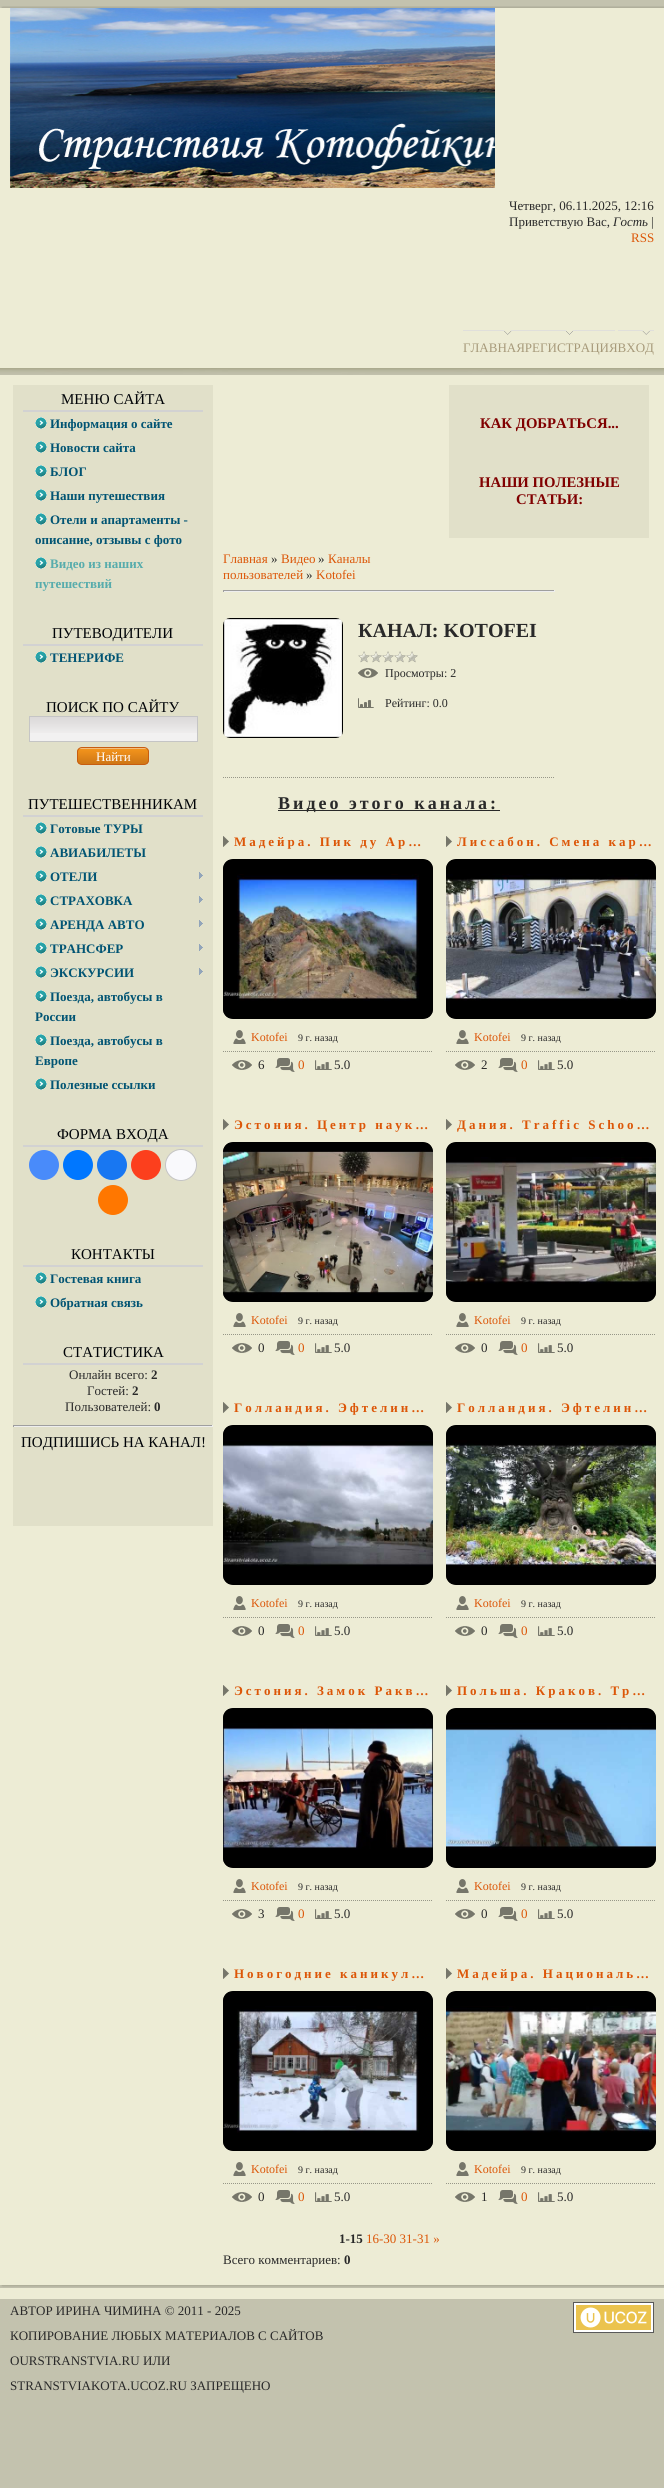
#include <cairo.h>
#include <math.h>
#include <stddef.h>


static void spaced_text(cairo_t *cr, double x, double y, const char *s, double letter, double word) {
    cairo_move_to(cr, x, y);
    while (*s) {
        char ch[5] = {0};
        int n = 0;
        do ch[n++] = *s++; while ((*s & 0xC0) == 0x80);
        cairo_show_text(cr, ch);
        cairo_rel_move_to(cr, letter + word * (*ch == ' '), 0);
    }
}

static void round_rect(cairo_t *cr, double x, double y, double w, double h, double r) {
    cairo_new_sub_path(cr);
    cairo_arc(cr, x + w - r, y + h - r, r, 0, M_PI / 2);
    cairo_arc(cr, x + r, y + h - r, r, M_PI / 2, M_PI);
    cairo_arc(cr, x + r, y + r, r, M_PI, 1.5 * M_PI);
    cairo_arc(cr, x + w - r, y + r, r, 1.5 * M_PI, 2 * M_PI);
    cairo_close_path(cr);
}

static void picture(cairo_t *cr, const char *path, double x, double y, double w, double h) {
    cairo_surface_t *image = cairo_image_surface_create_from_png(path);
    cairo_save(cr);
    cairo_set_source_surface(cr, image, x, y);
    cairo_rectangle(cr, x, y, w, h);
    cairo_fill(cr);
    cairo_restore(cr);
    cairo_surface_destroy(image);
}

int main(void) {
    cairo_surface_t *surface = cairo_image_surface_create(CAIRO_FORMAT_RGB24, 664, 2488);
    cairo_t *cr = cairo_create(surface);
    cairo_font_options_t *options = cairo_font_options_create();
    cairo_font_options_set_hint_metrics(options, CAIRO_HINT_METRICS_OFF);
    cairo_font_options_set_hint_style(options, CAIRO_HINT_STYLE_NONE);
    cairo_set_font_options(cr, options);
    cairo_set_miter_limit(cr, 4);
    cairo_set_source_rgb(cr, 0.765, 0.761, 0.682);
    cairo_paint(cr);
    picture(cr, "img1.png", 1, 6, 663, 2);
    cairo_set_source_rgb(cr, 0.929, 0.925, 0.835);
    cairo_rectangle(cr, 0, 8, 664, 2291);
    cairo_fill(cr);
    picture(cr, "img2.png", 10, 8, 485, 180);
    cairo_select_font_face(cr, "Liberation Serif", CAIRO_FONT_SLANT_NORMAL, CAIRO_FONT_WEIGHT_NORMAL);
    cairo_set_font_size(cr, 13);
    cairo_set_source_rgb(cr, 0.161, 0.161, 0.161);
    cairo_move_to(cr, 509, 210);
    cairo_show_text(cr, "Четверг, 06.11.2025, 12:16");
    cairo_move_to(cr, 509, 226);
    cairo_show_text(cr, "Приветствую Вас,");
    cairo_select_font_face(cr, "Liberation Serif", CAIRO_FONT_SLANT_ITALIC, CAIRO_FONT_WEIGHT_NORMAL);
    cairo_move_to(cr, 613, 226);
    cairo_show_text(cr, "Гость");
    cairo_select_font_face(cr, "Liberation Serif", CAIRO_FONT_SLANT_NORMAL, CAIRO_FONT_WEIGHT_NORMAL);
    cairo_move_to(cr, 651, 226);
    cairo_show_text(cr, "|");
    cairo_set_source_rgb(cr, 0.863, 0.337, 0.031);
    cairo_move_to(cr, 631, 242);
    cairo_show_text(cr, "RSS");
    picture(cr, "img3.png", 525, 330, 90, 5);
    picture(cr, "img4.png", 618, 330, 36, 5);
    picture(cr, "img5.png", 463, 330, 62, 5);
    cairo_set_source_rgb(cr, 0.655, 0.604, 0.478);
    cairo_move_to(cr, 463, 352);
    cairo_show_text(cr, "ГЛАВНАЯРЕГИСТРАЦИЯВХОД");
    picture(cr, "img6.png", 0, 368, 664, 7);
    cairo_set_source_rgb(cr, 0.882, 0.878, 0.788);
    cairo_rectangle(cr, 13, 385, 200, 1141);
    cairo_fill(cr);
    cairo_set_font_size(cr, 15);
    cairo_set_source_rgb(cr, 0, 0.012, 0.031);
    cairo_move_to(cr, 61, 404);
    cairo_show_text(cr, "МЕНЮ САЙТА");
    cairo_set_source_rgb(cr, 0.824, 0.824, 0.824);
    cairo_rectangle(cr, 23, 410, 180, 2);
    cairo_fill(cr);
    picture(cr, "img7.png", 35, 417, 12, 12);
    cairo_select_font_face(cr, "Liberation Serif", CAIRO_FONT_SLANT_NORMAL, CAIRO_FONT_WEIGHT_BOLD);
    cairo_set_font_size(cr, 13);
    cairo_set_source_rgb(cr, 0.004, 0.329, 0.451);
    cairo_move_to(cr, 50, 428);
    cairo_show_text(cr, "Информация о сайте");
    picture(cr, "img7.png", 35, 441, 12, 12);
    cairo_move_to(cr, 50, 452);
    cairo_show_text(cr, "Новости сайта");
    picture(cr, "img7.png", 35, 465, 12, 12);
    cairo_move_to(cr, 50, 476);
    cairo_show_text(cr, "БЛОГ");
    picture(cr, "img7.png", 35, 489, 12, 12);
    cairo_move_to(cr, 50, 500);
    cairo_show_text(cr, "Наши путешествия");
    picture(cr, "img7.png", 35, 513, 12, 12);
    cairo_move_to(cr, 50, 524);
    cairo_show_text(cr, "Отели и апартаменты -");
    cairo_move_to(cr, 35, 544);
    cairo_show_text(cr, "описание, отзывы c фото");
    picture(cr, "img7.png", 35, 557, 12, 12);
    cairo_set_source_rgb(cr, 0.341, 0.675, 0.675);
    cairo_move_to(cr, 50, 568);
    cairo_show_text(cr, "Видео из наших");
    cairo_move_to(cr, 35, 588);
    cairo_show_text(cr, "путешествий");
    cairo_select_font_face(cr, "Liberation Serif", CAIRO_FONT_SLANT_NORMAL, CAIRO_FONT_WEIGHT_NORMAL);
    cairo_set_font_size(cr, 15);
    cairo_set_source_rgb(cr, 0, 0.012, 0.031);
    cairo_move_to(cr, 52, 638);
    cairo_show_text(cr, "ПУТЕВОДИТЕЛИ");
    cairo_set_source_rgb(cr, 0.824, 0.824, 0.824);
    cairo_rectangle(cr, 23, 644, 180, 2);
    cairo_fill(cr);
    picture(cr, "img7.png", 35, 651, 12, 12);
    cairo_select_font_face(cr, "Liberation Serif", CAIRO_FONT_SLANT_NORMAL, CAIRO_FONT_WEIGHT_BOLD);
    cairo_set_font_size(cr, 13);
    cairo_set_source_rgb(cr, 0.004, 0.329, 0.451);
    cairo_move_to(cr, 50, 662);
    cairo_show_text(cr, "ТЕНЕРИФЕ");
    cairo_select_font_face(cr, "Liberation Serif", CAIRO_FONT_SLANT_NORMAL, CAIRO_FONT_WEIGHT_NORMAL);
    cairo_set_font_size(cr, 15);
    cairo_set_source_rgb(cr, 0, 0.012, 0.031);
    cairo_move_to(cr, 46, 712);
    cairo_show_text(cr, "ПОИСК ПО САЙТУ");
    cairo_set_source_rgb(cr, 0.949, 0.945, 0.945);
    cairo_rectangle(cr, 30, 733, 167, 8);
    cairo_fill(cr);
    picture(cr, "img8.png", 30, 717, 167, 16);
    cairo_rectangle(cr, 29.5, 716.5, 168, 25);
    cairo_set_source_rgb(cr, 0.773, 0.773, 0.773);
    cairo_set_line_width(cr, 1);
    cairo_stroke(cr);
    picture(cr, "img9.png", 77, 748, 72, 17);
    round_rect(cr, 77.5, 747.5, 71, 17, 4.5);
    cairo_set_source_rgb(cr, 0.78, 0.365, 0.067);
    cairo_stroke(cr);
    cairo_set_font_size(cr, 13);
    cairo_set_source_rgb(cr, 1, 1, 1);
    cairo_move_to(cr, 96, 761);
    cairo_show_text(cr, "Найти");
    cairo_set_font_size(cr, 15);
    cairo_set_source_rgb(cr, 0, 0.012, 0.031);
    cairo_move_to(cr, 28, 809);
    cairo_show_text(cr, "ПУТЕШЕСТВЕННИКАМ");
    cairo_set_source_rgb(cr, 0.824, 0.824, 0.824);
    cairo_rectangle(cr, 23, 815, 180, 2);
    cairo_fill(cr);
    picture(cr, "img7.png", 35, 822, 12, 12);
    cairo_select_font_face(cr, "Liberation Serif", CAIRO_FONT_SLANT_NORMAL, CAIRO_FONT_WEIGHT_BOLD);
    cairo_set_font_size(cr, 13);
    cairo_set_source_rgb(cr, 0.004, 0.329, 0.451);
    cairo_move_to(cr, 50, 833);
    cairo_show_text(cr, "Готовые ТУРЫ");
    picture(cr, "img7.png", 35, 846, 12, 12);
    cairo_move_to(cr, 50, 857);
    cairo_show_text(cr, "АВИАБИЛЕТЫ");
    picture(cr, "img7.png", 35, 870, 12, 12);
    cairo_move_to(cr, 50, 881);
    cairo_show_text(cr, "ОТЕЛИ");
    picture(cr, "img10.png", 199, 872, 4, 7);
    picture(cr, "img7.png", 35, 894, 12, 12);
    cairo_move_to(cr, 50, 905);
    cairo_show_text(cr, "СТРАХОВКА");
    picture(cr, "img10.png", 199, 896, 4, 7);
    picture(cr, "img7.png", 35, 918, 12, 12);
    cairo_move_to(cr, 50, 929);
    cairo_show_text(cr, "АРЕНДА АВТО");
    picture(cr, "img10.png", 199, 920, 4, 7);
    picture(cr, "img7.png", 35, 942, 12, 12);
    cairo_move_to(cr, 50, 953);
    cairo_show_text(cr, "ТРАНСФЕР");
    picture(cr, "img10.png", 199, 944, 4, 7);
    picture(cr, "img7.png", 35, 966, 12, 12);
    cairo_move_to(cr, 50, 977);
    cairo_show_text(cr, "ЭКСКУРСИИ");
    picture(cr, "img10.png", 199, 968, 4, 7);
    picture(cr, "img7.png", 35, 990, 12, 12);
    cairo_move_to(cr, 50, 1001);
    cairo_show_text(cr, "Поезда, автобусы в");
    cairo_move_to(cr, 35, 1021);
    cairo_show_text(cr, "России");
    picture(cr, "img7.png", 35, 1034, 12, 12);
    cairo_move_to(cr, 50, 1045);
    cairo_show_text(cr, "Поезда, автобусы в");
    cairo_move_to(cr, 35, 1065);
    cairo_show_text(cr, "Европе");
    picture(cr, "img7.png", 35, 1078, 12, 12);
    cairo_move_to(cr, 50, 1089);
    cairo_show_text(cr, "Полезные ссылки");
    cairo_select_font_face(cr, "Liberation Serif", CAIRO_FONT_SLANT_NORMAL, CAIRO_FONT_WEIGHT_NORMAL);
    cairo_set_font_size(cr, 15);
    cairo_set_source_rgb(cr, 0, 0.012, 0.031);
    cairo_move_to(cr, 57, 1139);
    cairo_show_text(cr, "ФОРМА ВХОДА");
    cairo_set_source_rgb(cr, 0.824, 0.824, 0.824);
    cairo_rectangle(cr, 23, 1145, 180, 2);
    cairo_fill(cr);
    cairo_set_source_rgb(cr, 0.286, 0.545, 0.98);
    cairo_arc(cr, 44, 1165, 15, 0, 2 * M_PI);
    cairo_fill(cr);
    cairo_set_source_rgb(cr, 0, 0.467, 1);
    cairo_arc(cr, 78, 1165, 15, 0, 2 * M_PI);
    cairo_fill(cr);
    cairo_set_source_rgb(cr, 0.094, 0.467, 0.949);
    cairo_arc(cr, 112, 1165, 15, 0, 2 * M_PI);
    cairo_fill(cr);
    cairo_set_source_rgb(cr, 0.988, 0.247, 0.114);
    cairo_arc(cr, 146, 1165, 15, 0, 2 * M_PI);
    cairo_fill(cr);
    cairo_set_source_rgb(cr, 0.973, 0.973, 0.988);
    cairo_arc(cr, 181, 1165, 15.5, 0, 2 * M_PI);
    cairo_fill_preserve(cr);
    cairo_set_source_rgb(cr, 0.769, 0.769, 0.769);
    cairo_stroke(cr);
    cairo_set_source_rgb(cr, 1, 0.467, 0);
    cairo_arc(cr, 113, 1200, 15, 0, 2 * M_PI);
    cairo_fill(cr);
    cairo_set_source_rgb(cr, 0, 0.012, 0.031);
    cairo_move_to(cr, 71, 1259);
    cairo_show_text(cr, "КОНТАКТЫ");
    cairo_set_source_rgb(cr, 0.824, 0.824, 0.824);
    cairo_rectangle(cr, 23, 1265, 180, 2);
    cairo_fill(cr);
    picture(cr, "img7.png", 35, 1272, 12, 12);
    cairo_select_font_face(cr, "Liberation Serif", CAIRO_FONT_SLANT_NORMAL, CAIRO_FONT_WEIGHT_BOLD);
    cairo_set_font_size(cr, 13);
    cairo_set_source_rgb(cr, 0.004, 0.329, 0.451);
    cairo_move_to(cr, 50, 1283);
    cairo_show_text(cr, "Гостевая книга");
    picture(cr, "img7.png", 35, 1296, 12, 12);
    cairo_move_to(cr, 50, 1307);
    cairo_show_text(cr, "Обратная связь");
    cairo_select_font_face(cr, "Liberation Serif", CAIRO_FONT_SLANT_NORMAL, CAIRO_FONT_WEIGHT_NORMAL);
    cairo_set_font_size(cr, 15);
    cairo_set_source_rgb(cr, 0, 0.012, 0.031);
    cairo_move_to(cr, 63, 1357);
    cairo_show_text(cr, "СТАТИСТИКА");
    cairo_set_source_rgb(cr, 0.824, 0.824, 0.824);
    cairo_rectangle(cr, 23, 1363, 180, 2);
    cairo_fill(cr);
    cairo_set_font_size(cr, 13);
    cairo_set_source_rgb(cr, 0.161, 0.161, 0.161);
    cairo_move_to(cr, 69, 1379);
    cairo_show_text(cr, "Онлайн всего:");
    cairo_select_font_face(cr, "Liberation Serif", CAIRO_FONT_SLANT_NORMAL, CAIRO_FONT_WEIGHT_BOLD);
    cairo_move_to(cr, 151, 1379);
    cairo_show_text(cr, "2");
    cairo_select_font_face(cr, "Liberation Serif", CAIRO_FONT_SLANT_NORMAL, CAIRO_FONT_WEIGHT_NORMAL);
    cairo_move_to(cr, 87, 1395);
    cairo_show_text(cr, "Гостей:");
    cairo_select_font_face(cr, "Liberation Serif", CAIRO_FONT_SLANT_NORMAL, CAIRO_FONT_WEIGHT_BOLD);
    cairo_move_to(cr, 132, 1395);
    cairo_show_text(cr, "2");
    cairo_select_font_face(cr, "Liberation Serif", CAIRO_FONT_SLANT_NORMAL, CAIRO_FONT_WEIGHT_NORMAL);
    cairo_move_to(cr, 65, 1411);
    cairo_show_text(cr, "Пользователей:");
    cairo_select_font_face(cr, "Liberation Serif", CAIRO_FONT_SLANT_NORMAL, CAIRO_FONT_WEIGHT_BOLD);
    cairo_move_to(cr, 154, 1411);
    cairo_show_text(cr, "0");
    cairo_set_source_rgb(cr, 0.624, 0.624, 0.624);
    cairo_rectangle(cr, 13, 1425, 200, 1);
    cairo_fill(cr);
    cairo_set_source_rgb(cr, 0.933, 0.933, 0.933);
    cairo_rectangle(cr, 212, 1425, 1, 2);
    cairo_fill(cr);
    cairo_rectangle(cr, 13, 1426, 200, 1);
    cairo_fill(cr);
    cairo_set_source_rgb(cr, 0.624, 0.624, 0.624);
    cairo_rectangle(cr, 13, 1425, 1, 2);
    cairo_fill(cr);
    cairo_select_font_face(cr, "Liberation Serif", CAIRO_FONT_SLANT_NORMAL, CAIRO_FONT_WEIGHT_NORMAL);
    cairo_set_font_size(cr, 15);
    cairo_set_source_rgb(cr, 0, 0.012, 0.031);
    cairo_move_to(cr, 21, 1447);
    cairo_show_text(cr, "ПОДПИШИСЬ НА КАНАЛ!");
    cairo_set_source_rgb(cr, 0.882, 0.878, 0.788);
    cairo_rectangle(cr, 449, 385, 200, 153);
    cairo_fill(cr);
    cairo_select_font_face(cr, "Liberation Serif", CAIRO_FONT_SLANT_NORMAL, CAIRO_FONT_WEIGHT_BOLD);
    cairo_set_font_size(cr, 14.75);
    cairo_set_source_rgb(cr, 0.502, 0, 0);
    cairo_move_to(cr, 480, 428);
    cairo_show_text(cr, "КАК ДОБРАТЬСЯ...");
    cairo_move_to(cr, 479, 487);
    cairo_show_text(cr, "НАШИ ПОЛЕЗНЫЕ");
    cairo_move_to(cr, 516, 504);
    cairo_show_text(cr, "СТАТЬИ:");
    cairo_select_font_face(cr, "Liberation Serif", CAIRO_FONT_SLANT_NORMAL, CAIRO_FONT_WEIGHT_NORMAL);
    cairo_set_font_size(cr, 13);
    cairo_set_source_rgb(cr, 0.863, 0.337, 0.031);
    cairo_move_to(cr, 223, 563);
    cairo_show_text(cr, "Главная");
    cairo_set_source_rgb(cr, 0.161, 0.161, 0.161);
    cairo_move_to(cr, 271, 563);
    cairo_show_text(cr, "»");
    cairo_set_source_rgb(cr, 0.863, 0.337, 0.031);
    cairo_move_to(cr, 281, 563);
    cairo_show_text(cr, "Видео");
    cairo_set_source_rgb(cr, 0.161, 0.161, 0.161);
    cairo_move_to(cr, 318, 563);
    cairo_show_text(cr, "»");
    cairo_set_source_rgb(cr, 0.863, 0.337, 0.031);
    cairo_move_to(cr, 328, 563);
    cairo_show_text(cr, "Каналы");
    cairo_move_to(cr, 223, 579);
    cairo_show_text(cr, "пользователей");
    cairo_set_source_rgb(cr, 0.161, 0.161, 0.161);
    cairo_move_to(cr, 306, 579);
    cairo_show_text(cr, "»");
    cairo_set_source_rgb(cr, 0.863, 0.337, 0.031);
    cairo_move_to(cr, 316, 579);
    cairo_show_text(cr, "Kotofei");
    cairo_set_source_rgb(cr, 0.624, 0.624, 0.624);
    cairo_rectangle(cr, 223, 590, 332, 1);
    cairo_fill(cr);
    cairo_set_source_rgb(cr, 0.933, 0.933, 0.933);
    cairo_rectangle(cr, 554, 590, 1, 2);
    cairo_fill(cr);
    cairo_rectangle(cr, 223, 591, 332, 1);
    cairo_fill(cr);
    cairo_set_source_rgb(cr, 0.624, 0.624, 0.624);
    cairo_rectangle(cr, 223, 590, 1, 2);
    cairo_fill(cr);
    picture(cr, "img11.png", 223, 618, 120, 120);
    cairo_select_font_face(cr, "Liberation Serif", CAIRO_FONT_SLANT_NORMAL, CAIRO_FONT_WEIGHT_BOLD);
    cairo_set_font_size(cr, 20);
    cairo_set_source_rgb(cr, 0.161, 0.161, 0.161);
    cairo_move_to(cr, 358, 637);
    cairo_show_text(cr, "КАНАЛ: KOTOFEI");
    picture(cr, "img12.png", 358, 651, 60, 12);
    picture(cr, "img13.png", 358, 668, 20, 10);
    cairo_select_font_face(cr, "Liberation Serif", CAIRO_FONT_SLANT_NORMAL, CAIRO_FONT_WEIGHT_NORMAL);
    cairo_set_font_size(cr, 12);
    cairo_move_to(cr, 385, 677);
    cairo_show_text(cr, "Просмотры: 2");
    picture(cr, "img14.png", 358, 698, 16, 10);
    cairo_move_to(cr, 385, 707);
    cairo_show_text(cr, "Рейтинг: 0.0");
    picture(cr, "img15.png", 223, 777, 331, 1);
    cairo_rectangle(cr, 278, 810, 222, 1);
    cairo_fill(cr);
    cairo_select_font_face(cr, "Liberation Serif", CAIRO_FONT_SLANT_NORMAL, CAIRO_FONT_WEIGHT_BOLD);
    cairo_set_font_size(cr, 18);
    spaced_text(cr, 278, 809, "Видео этого канала:", 3, 0);
    picture(cr, "img16.png", 223, 836, 6, 11);
    cairo_set_font_size(cr, 13);
    cairo_set_source_rgb(cr, 0.863, 0.337, 0.031);
    spaced_text(cr, 234, 846, "Мадейра. Пик ду Ар…", 3, 0);
    cairo_set_source_rgb(cr, 0, 0, 0);
    round_rect(cr, 223, 859, 210, 160, 10);
    cairo_fill(cr);
    picture(cr, "img17.png", 223, 860, 210, 158);
    picture(cr, "img18.png", 223, 1051, 209, 1);
    picture(cr, "img19.png", 233, 1030, 13, 14);
    cairo_select_font_face(cr, "Liberation Serif", CAIRO_FONT_SLANT_NORMAL, CAIRO_FONT_WEIGHT_NORMAL);
    cairo_set_font_size(cr, 12);
    cairo_set_source_rgb(cr, 0.863, 0.337, 0.031);
    cairo_move_to(cr, 251, 1041);
    cairo_show_text(cr, "Kotofei");
    cairo_set_font_size(cr, 10);
    cairo_set_source_rgb(cr, 0.161, 0.161, 0.161);
    cairo_move_to(cr, 298, 1041);
    cairo_show_text(cr, "9 г. назад");
    picture(cr, "img13.png", 232, 1060, 20, 10);
    cairo_set_font_size(cr, 13);
    cairo_move_to(cr, 258, 1069);
    cairo_show_text(cr, "6");
    picture(cr, "img20.png", 275, 1058, 20, 14);
    cairo_set_source_rgb(cr, 0.863, 0.337, 0.031);
    cairo_move_to(cr, 298, 1069);
    cairo_show_text(cr, "0");
    picture(cr, "img21.png", 315, 1060, 17, 10);
    cairo_set_source_rgb(cr, 0.161, 0.161, 0.161);
    cairo_move_to(cr, 334, 1069);
    cairo_show_text(cr, "5.0");
    picture(cr, "img16.png", 446, 836, 6, 11);
    cairo_select_font_face(cr, "Liberation Serif", CAIRO_FONT_SLANT_NORMAL, CAIRO_FONT_WEIGHT_BOLD);
    cairo_set_source_rgb(cr, 0.863, 0.337, 0.031);
    spaced_text(cr, 457, 846, "Лиссабон. Смена кар…", 3, 0);
    cairo_set_source_rgb(cr, 0, 0, 0);
    round_rect(cr, 446, 859, 210, 160, 10);
    cairo_fill(cr);
    picture(cr, "img22.png", 446, 860, 210, 158);
    picture(cr, "img18.png", 446, 1051, 209, 1);
    picture(cr, "img19.png", 456, 1030, 13, 14);
    cairo_select_font_face(cr, "Liberation Serif", CAIRO_FONT_SLANT_NORMAL, CAIRO_FONT_WEIGHT_NORMAL);
    cairo_set_font_size(cr, 12);
    cairo_set_source_rgb(cr, 0.863, 0.337, 0.031);
    cairo_move_to(cr, 474, 1041);
    cairo_show_text(cr, "Kotofei");
    cairo_set_font_size(cr, 10);
    cairo_set_source_rgb(cr, 0.161, 0.161, 0.161);
    cairo_move_to(cr, 521, 1041);
    cairo_show_text(cr, "9 г. назад");
    picture(cr, "img13.png", 455, 1060, 20, 10);
    cairo_set_font_size(cr, 13);
    cairo_move_to(cr, 481, 1069);
    cairo_show_text(cr, "2");
    picture(cr, "img20.png", 498, 1058, 20, 14);
    cairo_set_source_rgb(cr, 0.863, 0.337, 0.031);
    cairo_move_to(cr, 521, 1069);
    cairo_show_text(cr, "0");
    picture(cr, "img21.png", 538, 1060, 17, 10);
    cairo_set_source_rgb(cr, 0.161, 0.161, 0.161);
    cairo_move_to(cr, 557, 1069);
    cairo_show_text(cr, "5.0");
    picture(cr, "img16.png", 223, 1119, 6, 11);
    cairo_select_font_face(cr, "Liberation Serif", CAIRO_FONT_SLANT_NORMAL, CAIRO_FONT_WEIGHT_BOLD);
    cairo_set_source_rgb(cr, 0.863, 0.337, 0.031);
    spaced_text(cr, 234, 1129, "Эстония. Центр наук…", 3, 0);
    cairo_set_source_rgb(cr, 0, 0, 0);
    round_rect(cr, 223, 1142, 210, 160, 10);
    cairo_fill(cr);
    picture(cr, "img23.png", 223, 1143, 210, 158);
    picture(cr, "img18.png", 223, 1334, 209, 1);
    picture(cr, "img19.png", 233, 1313, 13, 14);
    cairo_select_font_face(cr, "Liberation Serif", CAIRO_FONT_SLANT_NORMAL, CAIRO_FONT_WEIGHT_NORMAL);
    cairo_set_font_size(cr, 12);
    cairo_set_source_rgb(cr, 0.863, 0.337, 0.031);
    cairo_move_to(cr, 251, 1324);
    cairo_show_text(cr, "Kotofei");
    cairo_set_font_size(cr, 10);
    cairo_set_source_rgb(cr, 0.161, 0.161, 0.161);
    cairo_move_to(cr, 298, 1324);
    cairo_show_text(cr, "9 г. назад");
    picture(cr, "img13.png", 232, 1343, 20, 10);
    cairo_set_font_size(cr, 13);
    cairo_move_to(cr, 258, 1352);
    cairo_show_text(cr, "0");
    picture(cr, "img20.png", 275, 1341, 20, 14);
    cairo_set_source_rgb(cr, 0.863, 0.337, 0.031);
    cairo_move_to(cr, 298, 1352);
    cairo_show_text(cr, "0");
    picture(cr, "img21.png", 315, 1343, 17, 10);
    cairo_set_source_rgb(cr, 0.161, 0.161, 0.161);
    cairo_move_to(cr, 334, 1352);
    cairo_show_text(cr, "5.0");
    picture(cr, "img16.png", 446, 1119, 6, 11);
    cairo_select_font_face(cr, "Liberation Serif", CAIRO_FONT_SLANT_NORMAL, CAIRO_FONT_WEIGHT_BOLD);
    cairo_set_source_rgb(cr, 0.863, 0.337, 0.031);
    spaced_text(cr, 457, 1129, "Дания. Traffic Schoo…", 3, 0);
    cairo_set_source_rgb(cr, 0, 0, 0);
    round_rect(cr, 446, 1142, 210, 160, 10);
    cairo_fill(cr);
    picture(cr, "img24.png", 446, 1143, 210, 158);
    picture(cr, "img18.png", 446, 1334, 209, 1);
    picture(cr, "img19.png", 456, 1313, 13, 14);
    cairo_select_font_face(cr, "Liberation Serif", CAIRO_FONT_SLANT_NORMAL, CAIRO_FONT_WEIGHT_NORMAL);
    cairo_set_font_size(cr, 12);
    cairo_set_source_rgb(cr, 0.863, 0.337, 0.031);
    cairo_move_to(cr, 474, 1324);
    cairo_show_text(cr, "Kotofei");
    cairo_set_font_size(cr, 10);
    cairo_set_source_rgb(cr, 0.161, 0.161, 0.161);
    cairo_move_to(cr, 521, 1324);
    cairo_show_text(cr, "9 г. назад");
    picture(cr, "img13.png", 455, 1343, 20, 10);
    cairo_set_font_size(cr, 13);
    cairo_move_to(cr, 481, 1352);
    cairo_show_text(cr, "0");
    picture(cr, "img20.png", 498, 1341, 20, 14);
    cairo_set_source_rgb(cr, 0.863, 0.337, 0.031);
    cairo_move_to(cr, 521, 1352);
    cairo_show_text(cr, "0");
    picture(cr, "img21.png", 538, 1343, 17, 10);
    cairo_set_source_rgb(cr, 0.161, 0.161, 0.161);
    cairo_move_to(cr, 557, 1352);
    cairo_show_text(cr, "5.0");
    picture(cr, "img16.png", 223, 1402, 6, 11);
    cairo_select_font_face(cr, "Liberation Serif", CAIRO_FONT_SLANT_NORMAL, CAIRO_FONT_WEIGHT_BOLD);
    cairo_set_source_rgb(cr, 0.863, 0.337, 0.031);
    spaced_text(cr, 234, 1412, "Голландия. Эфтелин…", 3, 0);
    cairo_set_source_rgb(cr, 0, 0, 0);
    round_rect(cr, 223, 1425, 210, 160, 10);
    cairo_fill(cr);
    picture(cr, "img25.png", 223, 1426, 210, 158);
    picture(cr, "img18.png", 223, 1617, 209, 1);
    picture(cr, "img19.png", 233, 1596, 13, 14);
    cairo_select_font_face(cr, "Liberation Serif", CAIRO_FONT_SLANT_NORMAL, CAIRO_FONT_WEIGHT_NORMAL);
    cairo_set_font_size(cr, 12);
    cairo_set_source_rgb(cr, 0.863, 0.337, 0.031);
    cairo_move_to(cr, 251, 1607);
    cairo_show_text(cr, "Kotofei");
    cairo_set_font_size(cr, 10);
    cairo_set_source_rgb(cr, 0.161, 0.161, 0.161);
    cairo_move_to(cr, 298, 1607);
    cairo_show_text(cr, "9 г. назад");
    picture(cr, "img13.png", 232, 1626, 20, 10);
    cairo_set_font_size(cr, 13);
    cairo_move_to(cr, 258, 1635);
    cairo_show_text(cr, "0");
    picture(cr, "img20.png", 275, 1624, 20, 14);
    cairo_set_source_rgb(cr, 0.863, 0.337, 0.031);
    cairo_move_to(cr, 298, 1635);
    cairo_show_text(cr, "0");
    picture(cr, "img21.png", 315, 1626, 17, 10);
    cairo_set_source_rgb(cr, 0.161, 0.161, 0.161);
    cairo_move_to(cr, 334, 1635);
    cairo_show_text(cr, "5.0");
    picture(cr, "img16.png", 446, 1402, 6, 11);
    cairo_select_font_face(cr, "Liberation Serif", CAIRO_FONT_SLANT_NORMAL, CAIRO_FONT_WEIGHT_BOLD);
    cairo_set_source_rgb(cr, 0.863, 0.337, 0.031);
    spaced_text(cr, 457, 1412, "Голландия. Эфтелин…", 3, 0);
    cairo_set_source_rgb(cr, 0, 0, 0);
    round_rect(cr, 446, 1425, 210, 160, 10);
    cairo_fill(cr);
    picture(cr, "img26.png", 446, 1426, 210, 158);
    picture(cr, "img18.png", 446, 1617, 209, 1);
    picture(cr, "img19.png", 456, 1596, 13, 14);
    cairo_select_font_face(cr, "Liberation Serif", CAIRO_FONT_SLANT_NORMAL, CAIRO_FONT_WEIGHT_NORMAL);
    cairo_set_font_size(cr, 12);
    cairo_set_source_rgb(cr, 0.863, 0.337, 0.031);
    cairo_move_to(cr, 474, 1607);
    cairo_show_text(cr, "Kotofei");
    cairo_set_font_size(cr, 10);
    cairo_set_source_rgb(cr, 0.161, 0.161, 0.161);
    cairo_move_to(cr, 521, 1607);
    cairo_show_text(cr, "9 г. назад");
    picture(cr, "img13.png", 455, 1626, 20, 10);
    cairo_set_font_size(cr, 13);
    cairo_move_to(cr, 481, 1635);
    cairo_show_text(cr, "0");
    picture(cr, "img20.png", 498, 1624, 20, 14);
    cairo_set_source_rgb(cr, 0.863, 0.337, 0.031);
    cairo_move_to(cr, 521, 1635);
    cairo_show_text(cr, "0");
    picture(cr, "img21.png", 538, 1626, 17, 10);
    cairo_set_source_rgb(cr, 0.161, 0.161, 0.161);
    cairo_move_to(cr, 557, 1635);
    cairo_show_text(cr, "5.0");
    picture(cr, "img16.png", 223, 1685, 6, 11);
    cairo_select_font_face(cr, "Liberation Serif", CAIRO_FONT_SLANT_NORMAL, CAIRO_FONT_WEIGHT_BOLD);
    cairo_set_source_rgb(cr, 0.863, 0.337, 0.031);
    spaced_text(cr, 234, 1695, "Эстония. Замок Ракв…", 3, 0);
    cairo_set_source_rgb(cr, 0, 0, 0);
    round_rect(cr, 223, 1708, 210, 160, 10);
    cairo_fill(cr);
    picture(cr, "img27.png", 223, 1709, 210, 158);
    picture(cr, "img18.png", 223, 1900, 209, 1);
    picture(cr, "img19.png", 233, 1879, 13, 14);
    cairo_select_font_face(cr, "Liberation Serif", CAIRO_FONT_SLANT_NORMAL, CAIRO_FONT_WEIGHT_NORMAL);
    cairo_set_font_size(cr, 12);
    cairo_set_source_rgb(cr, 0.863, 0.337, 0.031);
    cairo_move_to(cr, 251, 1890);
    cairo_show_text(cr, "Kotofei");
    cairo_set_font_size(cr, 10);
    cairo_set_source_rgb(cr, 0.161, 0.161, 0.161);
    cairo_move_to(cr, 298, 1890);
    cairo_show_text(cr, "9 г. назад");
    picture(cr, "img13.png", 232, 1909, 20, 10);
    cairo_set_font_size(cr, 13);
    cairo_move_to(cr, 258, 1918);
    cairo_show_text(cr, "3");
    picture(cr, "img20.png", 275, 1907, 20, 14);
    cairo_set_source_rgb(cr, 0.863, 0.337, 0.031);
    cairo_move_to(cr, 298, 1918);
    cairo_show_text(cr, "0");
    picture(cr, "img21.png", 315, 1909, 17, 10);
    cairo_set_source_rgb(cr, 0.161, 0.161, 0.161);
    cairo_move_to(cr, 334, 1918);
    cairo_show_text(cr, "5.0");
    picture(cr, "img16.png", 446, 1685, 6, 11);
    cairo_select_font_face(cr, "Liberation Serif", CAIRO_FONT_SLANT_NORMAL, CAIRO_FONT_WEIGHT_BOLD);
    cairo_set_source_rgb(cr, 0.863, 0.337, 0.031);
    spaced_text(cr, 457, 1695, "Польша. Краков. Тр…", 3, 0);
    cairo_set_source_rgb(cr, 0, 0, 0);
    round_rect(cr, 446, 1708, 210, 160, 10);
    cairo_fill(cr);
    picture(cr, "img28.png", 446, 1709, 210, 158);
    picture(cr, "img18.png", 446, 1900, 209, 1);
    picture(cr, "img19.png", 456, 1879, 13, 14);
    cairo_select_font_face(cr, "Liberation Serif", CAIRO_FONT_SLANT_NORMAL, CAIRO_FONT_WEIGHT_NORMAL);
    cairo_set_font_size(cr, 12);
    cairo_set_source_rgb(cr, 0.863, 0.337, 0.031);
    cairo_move_to(cr, 474, 1890);
    cairo_show_text(cr, "Kotofei");
    cairo_set_font_size(cr, 10);
    cairo_set_source_rgb(cr, 0.161, 0.161, 0.161);
    cairo_move_to(cr, 521, 1890);
    cairo_show_text(cr, "9 г. назад");
    picture(cr, "img13.png", 455, 1909, 20, 10);
    cairo_set_font_size(cr, 13);
    cairo_move_to(cr, 481, 1918);
    cairo_show_text(cr, "0");
    picture(cr, "img20.png", 498, 1907, 20, 14);
    cairo_set_source_rgb(cr, 0.863, 0.337, 0.031);
    cairo_move_to(cr, 521, 1918);
    cairo_show_text(cr, "0");
    picture(cr, "img21.png", 538, 1909, 17, 10);
    cairo_set_source_rgb(cr, 0.161, 0.161, 0.161);
    cairo_move_to(cr, 557, 1918);
    cairo_show_text(cr, "5.0");
    picture(cr, "img16.png", 223, 1968, 6, 11);
    cairo_select_font_face(cr, "Liberation Serif", CAIRO_FONT_SLANT_NORMAL, CAIRO_FONT_WEIGHT_BOLD);
    cairo_set_source_rgb(cr, 0.863, 0.337, 0.031);
    spaced_text(cr, 234, 1978, "Новогодние каникул…", 3, 0);
    cairo_set_source_rgb(cr, 0, 0, 0);
    round_rect(cr, 223, 1991, 210, 160, 10);
    cairo_fill(cr);
    picture(cr, "img29.png", 223, 1992, 210, 158);
    picture(cr, "img18.png", 223, 2183, 209, 1);
    picture(cr, "img19.png", 233, 2162, 13, 14);
    cairo_select_font_face(cr, "Liberation Serif", CAIRO_FONT_SLANT_NORMAL, CAIRO_FONT_WEIGHT_NORMAL);
    cairo_set_font_size(cr, 12);
    cairo_set_source_rgb(cr, 0.863, 0.337, 0.031);
    cairo_move_to(cr, 251, 2173);
    cairo_show_text(cr, "Kotofei");
    cairo_set_font_size(cr, 10);
    cairo_set_source_rgb(cr, 0.161, 0.161, 0.161);
    cairo_move_to(cr, 298, 2173);
    cairo_show_text(cr, "9 г. назад");
    picture(cr, "img13.png", 232, 2192, 20, 10);
    cairo_set_font_size(cr, 13);
    cairo_move_to(cr, 258, 2201);
    cairo_show_text(cr, "0");
    picture(cr, "img20.png", 275, 2190, 20, 14);
    cairo_set_source_rgb(cr, 0.863, 0.337, 0.031);
    cairo_move_to(cr, 298, 2201);
    cairo_show_text(cr, "0");
    picture(cr, "img21.png", 315, 2192, 17, 10);
    cairo_set_source_rgb(cr, 0.161, 0.161, 0.161);
    cairo_move_to(cr, 334, 2201);
    cairo_show_text(cr, "5.0");
    picture(cr, "img16.png", 446, 1968, 6, 11);
    cairo_select_font_face(cr, "Liberation Serif", CAIRO_FONT_SLANT_NORMAL, CAIRO_FONT_WEIGHT_BOLD);
    cairo_set_source_rgb(cr, 0.863, 0.337, 0.031);
    spaced_text(cr, 457, 1978, "Мадейра. Националь…", 3, 0);
    cairo_set_source_rgb(cr, 0, 0, 0);
    round_rect(cr, 446, 1991, 210, 160, 10);
    cairo_fill(cr);
    picture(cr, "img30.png", 446, 1992, 210, 158);
    picture(cr, "img18.png", 446, 2183, 209, 1);
    picture(cr, "img19.png", 456, 2162, 13, 14);
    cairo_select_font_face(cr, "Liberation Serif", CAIRO_FONT_SLANT_NORMAL, CAIRO_FONT_WEIGHT_NORMAL);
    cairo_set_font_size(cr, 12);
    cairo_set_source_rgb(cr, 0.863, 0.337, 0.031);
    cairo_move_to(cr, 474, 2173);
    cairo_show_text(cr, "Kotofei");
    cairo_set_font_size(cr, 10);
    cairo_set_source_rgb(cr, 0.161, 0.161, 0.161);
    cairo_move_to(cr, 521, 2173);
    cairo_show_text(cr, "9 г. назад");
    picture(cr, "img13.png", 455, 2192, 20, 10);
    cairo_set_font_size(cr, 13);
    cairo_move_to(cr, 481, 2201);
    cairo_show_text(cr, "1");
    picture(cr, "img20.png", 498, 2190, 20, 14);
    cairo_set_source_rgb(cr, 0.863, 0.337, 0.031);
    cairo_move_to(cr, 521, 2201);
    cairo_show_text(cr, "0");
    picture(cr, "img21.png", 538, 2192, 17, 10);
    cairo_set_source_rgb(cr, 0.161, 0.161, 0.161);
    cairo_move_to(cr, 557, 2201);
    cairo_show_text(cr, "5.0");
    cairo_select_font_face(cr, "Liberation Serif", CAIRO_FONT_SLANT_NORMAL, CAIRO_FONT_WEIGHT_BOLD);
    cairo_move_to(cr, 339, 2243);
    cairo_show_text(cr, "1-15");
    cairo_select_font_face(cr, "Liberation Serif", CAIRO_FONT_SLANT_NORMAL, CAIRO_FONT_WEIGHT_NORMAL);
    cairo_set_source_rgb(cr, 0.863, 0.337, 0.031);
    cairo_move_to(cr, 366, 2243);
    cairo_show_text(cr, "16-30 31-31 »");
    cairo_set_source_rgb(cr, 0.161, 0.161, 0.161);
    cairo_move_to(cr, 223, 2264);
    cairo_show_text(cr, "Всего комментариев:");
    cairo_select_font_face(cr, "Liberation Serif", CAIRO_FONT_SLANT_NORMAL, CAIRO_FONT_WEIGHT_BOLD);
    cairo_move_to(cr, 344, 2264);
    cairo_show_text(cr, "0");
    picture(cr, "img31.png", 0, 2285, 664, 3);
    cairo_select_font_face(cr, "Liberation Serif", CAIRO_FONT_SLANT_NORMAL, CAIRO_FONT_WEIGHT_NORMAL);
    cairo_move_to(cr, 10, 2315);
    cairo_show_text(cr, "АВТОР ИРИНА ЧИМИНА © 2011 - 2025");
    cairo_move_to(cr, 10, 2340);
    cairo_show_text(cr, "КОПИРОВАНИЕ ЛЮБЫХ МАТЕРИАЛОВ С САЙТОВ");
    cairo_move_to(cr, 10, 2365);
    cairo_show_text(cr, "OURSTRANSTVIA.RU ИЛИ");
    cairo_move_to(cr, 10, 2390);
    cairo_show_text(cr, "STRANSTVIAKOTA.UCOZ.RU ЗАПРЕЩЕНО");
    picture(cr, "img32.png", 573, 2302, 81, 31);
    cairo_surface_write_to_png(surface, "page.png");
    cairo_font_options_destroy(options);
    cairo_destroy(cr);
    cairo_surface_destroy(surface);
    return 0;
}
